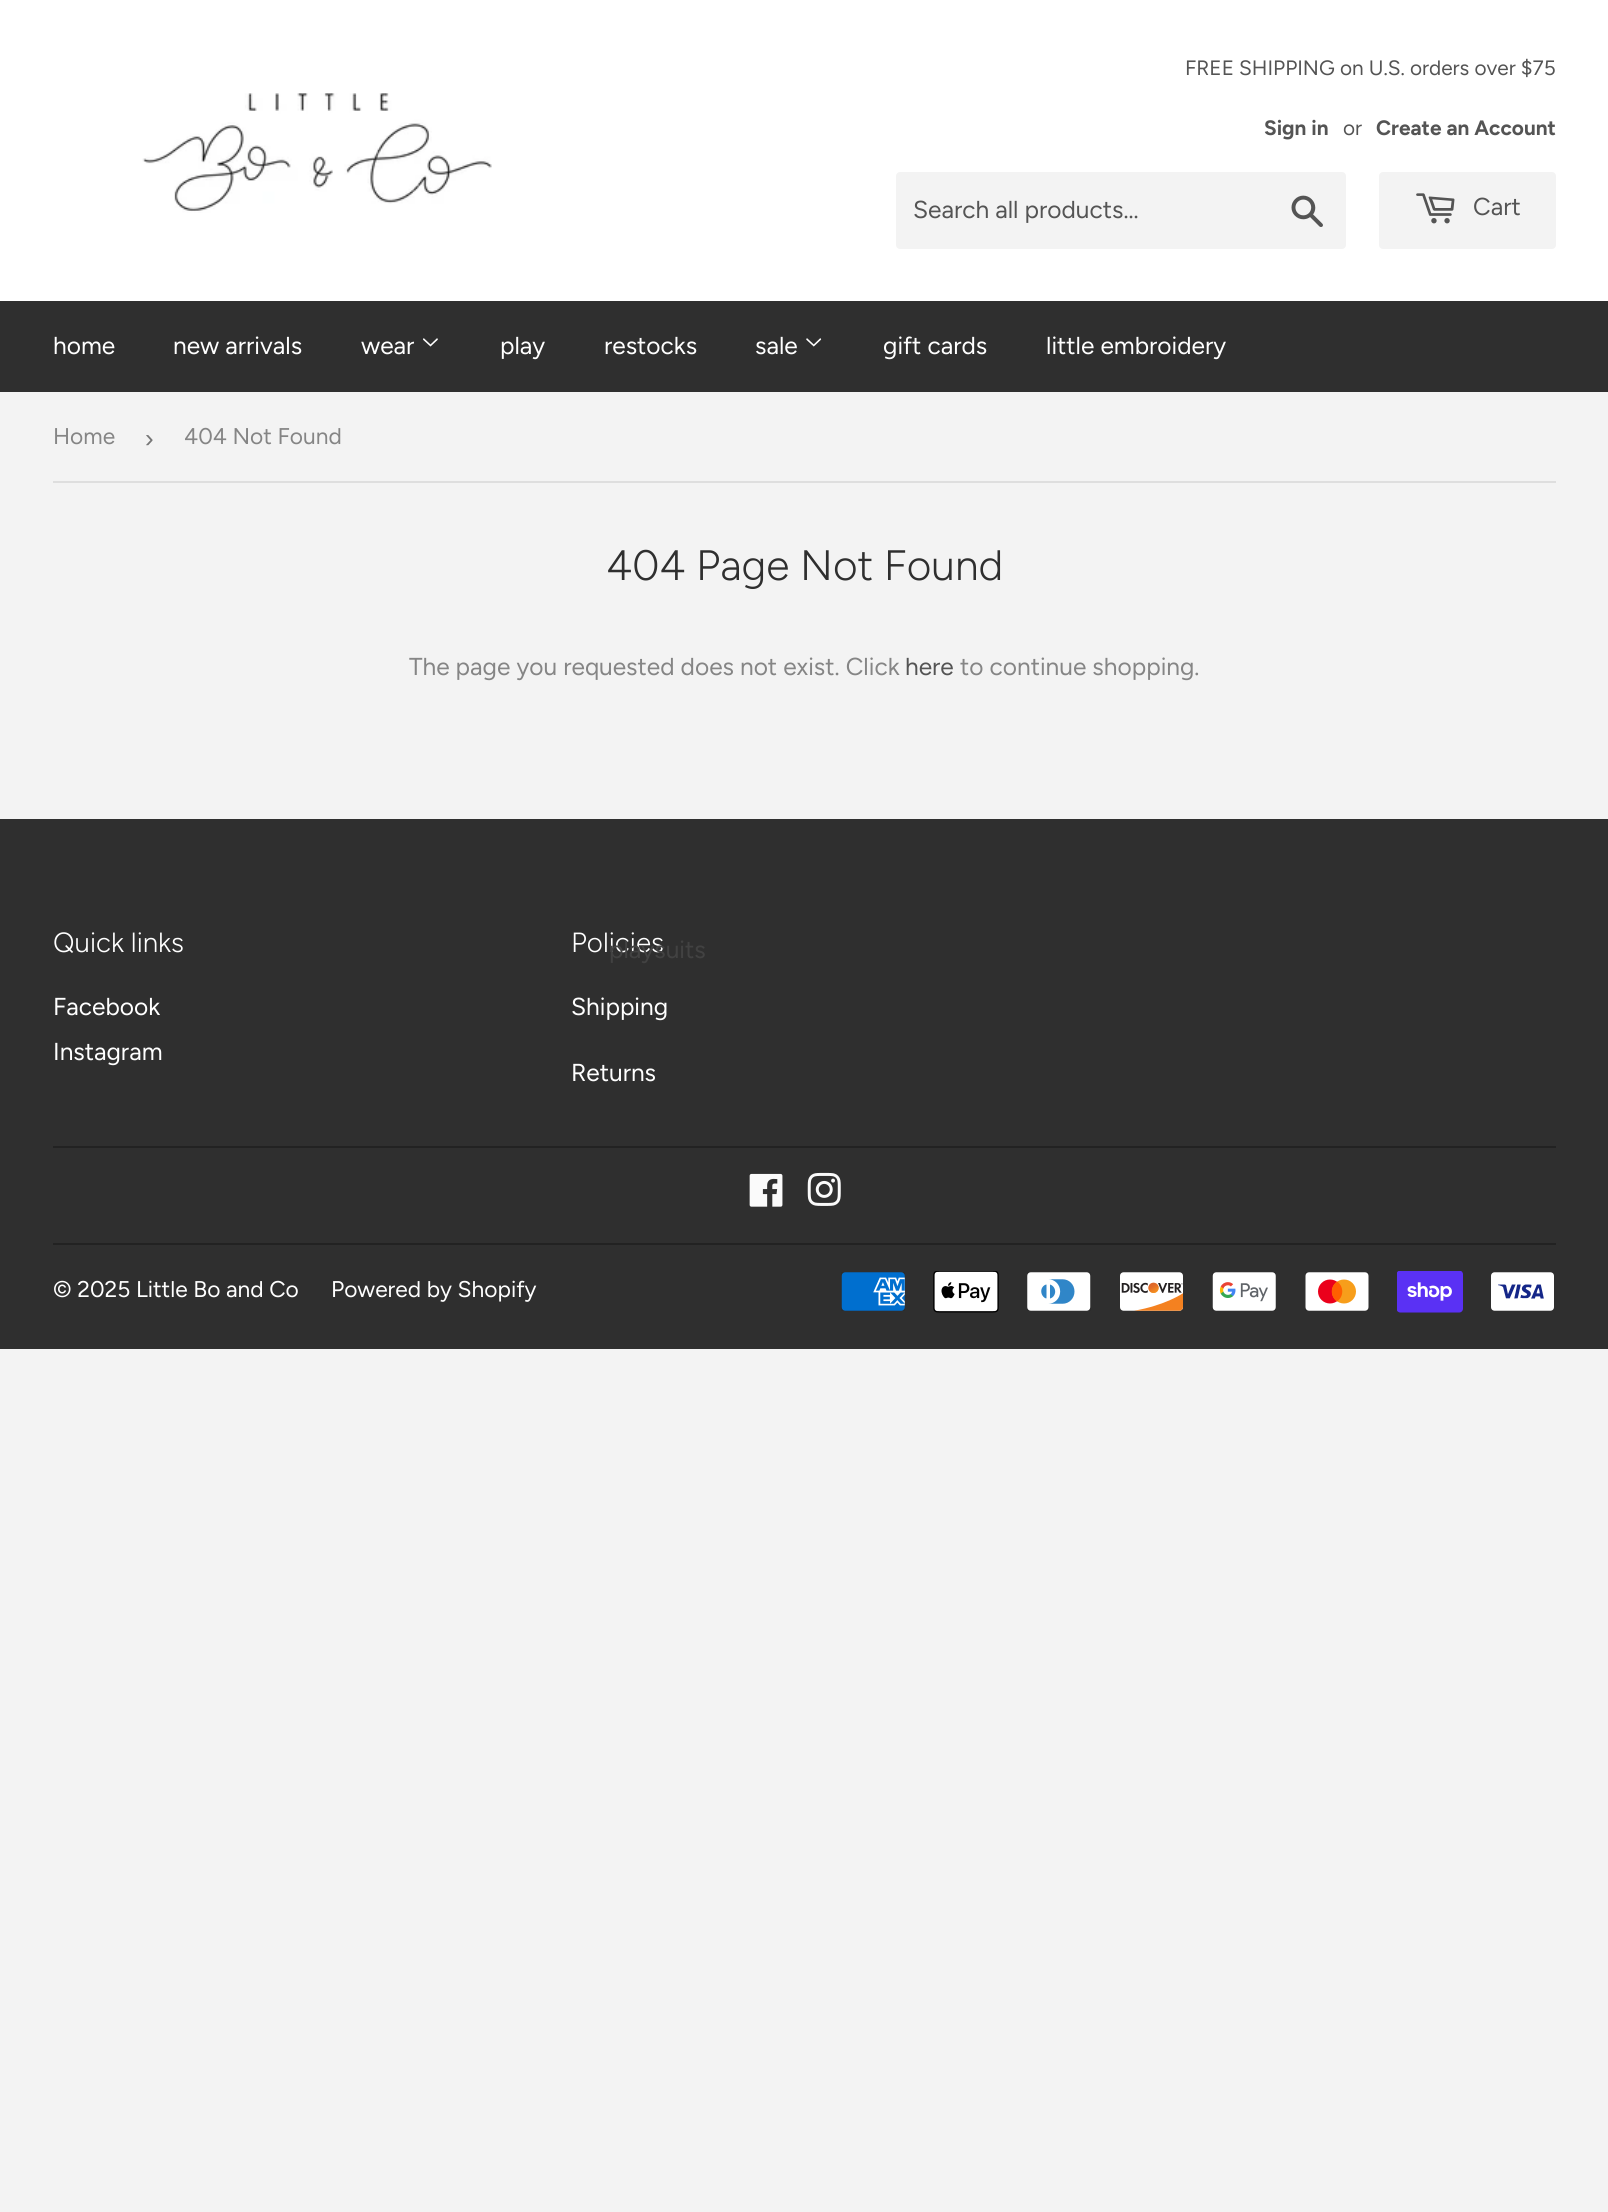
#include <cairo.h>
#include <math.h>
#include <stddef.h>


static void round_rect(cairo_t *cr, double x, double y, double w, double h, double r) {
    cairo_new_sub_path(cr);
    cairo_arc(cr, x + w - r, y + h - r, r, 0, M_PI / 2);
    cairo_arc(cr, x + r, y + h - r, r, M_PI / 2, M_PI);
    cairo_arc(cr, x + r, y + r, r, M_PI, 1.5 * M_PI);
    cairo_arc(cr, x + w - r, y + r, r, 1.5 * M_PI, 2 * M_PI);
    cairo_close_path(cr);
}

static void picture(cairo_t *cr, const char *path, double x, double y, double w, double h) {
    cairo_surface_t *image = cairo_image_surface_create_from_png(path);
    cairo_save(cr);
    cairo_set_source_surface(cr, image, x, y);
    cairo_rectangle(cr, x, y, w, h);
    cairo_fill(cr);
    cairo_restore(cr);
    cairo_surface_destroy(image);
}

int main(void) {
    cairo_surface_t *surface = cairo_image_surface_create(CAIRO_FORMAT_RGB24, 1608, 2212);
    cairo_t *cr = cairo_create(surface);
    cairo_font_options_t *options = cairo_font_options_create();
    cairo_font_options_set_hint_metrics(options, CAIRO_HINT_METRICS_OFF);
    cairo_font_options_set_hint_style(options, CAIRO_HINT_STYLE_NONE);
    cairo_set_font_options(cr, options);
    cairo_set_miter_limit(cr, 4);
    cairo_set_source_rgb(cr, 0.953, 0.953, 0.953);
    cairo_paint(cr);
    cairo_set_source_rgb(cr, 1, 1, 1);
    cairo_rectangle(cr, 0, 0, 1608, 301);
    cairo_fill(cr);
    picture(cr, "img1.png", 142, 93, 350, 120);
    cairo_select_font_face(cr, "Figtree", CAIRO_FONT_SLANT_NORMAL, CAIRO_FONT_WEIGHT_NORMAL);
    cairo_set_font_size(cr, 20.8);
    cairo_set_source_rgb(cr, 0.329, 0.329, 0.329);
    cairo_move_to(cr, 1185, 75);
    cairo_show_text(cr, "FREE SHIPPING on U.S. orders over $75");
    cairo_select_font_face(cr, "Figtree", CAIRO_FONT_SLANT_NORMAL, CAIRO_FONT_WEIGHT_BOLD);
    cairo_move_to(cr, 1264, 135);
    cairo_show_text(cr, "Sign in");
    cairo_select_font_face(cr, "Figtree", CAIRO_FONT_SLANT_NORMAL, CAIRO_FONT_WEIGHT_NORMAL);
    cairo_move_to(cr, 1343, 135);
    cairo_show_text(cr, "or");
    cairo_select_font_face(cr, "Figtree", CAIRO_FONT_SLANT_NORMAL, CAIRO_FONT_WEIGHT_BOLD);
    cairo_move_to(cr, 1376, 135);
    cairo_show_text(cr, "Create an Account");
    cairo_set_source_rgb(cr, 0.953, 0.953, 0.953);
    round_rect(cr, 896, 172, 450, 77, 4);
    cairo_fill(cr);
    cairo_select_font_face(cr, "Figtree", CAIRO_FONT_SLANT_NORMAL, CAIRO_FONT_WEIGHT_NORMAL);
    cairo_set_font_size(cr, 24.5);
    cairo_set_source_rgb(cr, 0.329, 0.329, 0.329);
    cairo_move_to(cr, 913, 218);
    cairo_show_text(cr, "Search all products...");
    picture(cr, "img2.png", 1291, 195, 32, 32);
    cairo_set_source_rgb(cr, 0.953, 0.953, 0.953);
    round_rect(cr, 1379, 172, 177, 77, 4);
    cairo_fill(cr);
    picture(cr, "img3.png", 1416, 193, 39, 31);
    cairo_set_source_rgb(cr, 0.329, 0.329, 0.329);
    cairo_move_to(cr, 1473, 215);
    cairo_show_text(cr, "Cart");
    cairo_set_source_rgb(cr, 0.184, 0.184, 0.184);
    cairo_rectangle(cr, 0, 301, 1608, 91);
    cairo_fill(cr);
    cairo_set_source_rgb(cr, 1, 1, 1);
    cairo_move_to(cr, 53, 354);
    cairo_show_text(cr, "home");
    cairo_move_to(cr, 173, 354);
    cairo_show_text(cr, "new arrivals");
    cairo_move_to(cr, 500, 354);
    cairo_show_text(cr, "play");
    cairo_move_to(cr, 604, 354);
    cairo_show_text(cr, "restocks");
    cairo_move_to(cr, 755, 354);
    cairo_show_text(cr, "sale");
    picture(cr, "img4.png", 806, 338, 16, 9);
    cairo_move_to(cr, 883, 354);
    cairo_show_text(cr, "gift cards");
    cairo_move_to(cr, 1046, 354);
    cairo_show_text(cr, "little embroidery");
    cairo_move_to(cr, 361, 354);
    cairo_show_text(cr, "wear");
    picture(cr, "img5.png", 423, 338, 15, 9);
    cairo_set_source_rgb(cr, 0.184, 0.184, 0.184);
    cairo_rectangle(cr, 0, 819, 1608, 530);
    cairo_fill(cr);
    cairo_select_font_face(cr, "Figtree Light", CAIRO_FONT_SLANT_NORMAL, CAIRO_FONT_WEIGHT_NORMAL);
    cairo_set_font_size(cr, 27.75);
    cairo_set_source_rgb(cr, 1, 1, 1);
    cairo_move_to(cr, 571, 952);
    cairo_show_text(cr, "Policies");
    cairo_select_font_face(cr, "Figtree", CAIRO_FONT_SLANT_NORMAL, CAIRO_FONT_WEIGHT_NORMAL);
    cairo_set_font_size(cr, 24.5);
    cairo_set_source_rgb(cr, 0.259, 0.259, 0.259);
    cairo_move_to(cr, 609, 958);
    cairo_show_text(cr, "playsuits");
    cairo_set_source_rgb(cr, 0.871, 0.871, 0.871);
    cairo_rectangle(cr, 53, 481, 1503, 2);
    cairo_fill(cr);
    cairo_set_font_size(cr, 22.75);
    cairo_set_source_rgb(cr, 0.522, 0.522, 0.522);
    cairo_move_to(cr, 53, 444);
    cairo_show_text(cr, "Home");
    cairo_select_font_face(cr, "Liberation Sans", CAIRO_FONT_SLANT_NORMAL, CAIRO_FONT_WEIGHT_NORMAL);
    cairo_set_font_size(cr, 26);
    cairo_set_source_rgb(cr, 0.463, 0.463, 0.463);
    cairo_move_to(cr, 145, 447);
    cairo_show_text(cr, "›");
    cairo_select_font_face(cr, "Figtree", CAIRO_FONT_SLANT_NORMAL, CAIRO_FONT_WEIGHT_NORMAL);
    cairo_set_font_size(cr, 22.75);
    cairo_set_source_rgb(cr, 0.522, 0.522, 0.522);
    cairo_move_to(cr, 184, 444);
    cairo_show_text(cr, "404 Not Found");
    cairo_select_font_face(cr, "Figtree Light", CAIRO_FONT_SLANT_NORMAL, CAIRO_FONT_WEIGHT_NORMAL);
    cairo_set_font_size(cr, 42.5);
    cairo_set_source_rgb(cr, 0.184, 0.184, 0.184);
    cairo_move_to(cr, 606, 580);
    cairo_show_text(cr, "404 Page Not Found");
    cairo_select_font_face(cr, "Figtree", CAIRO_FONT_SLANT_NORMAL, CAIRO_FONT_WEIGHT_NORMAL);
    cairo_set_font_size(cr, 24.5);
    cairo_set_source_rgb(cr, 0.522, 0.522, 0.522);
    cairo_move_to(cr, 409, 675);
    cairo_show_text(cr, "The page you requested does not exist. Click");
    cairo_set_source_rgb(cr, 0.329, 0.329, 0.329);
    cairo_move_to(cr, 905, 675);
    cairo_show_text(cr, "here");
    cairo_set_source_rgb(cr, 0.522, 0.522, 0.522);
    cairo_move_to(cr, 960, 675);
    cairo_show_text(cr, "to continue shopping.");
    cairo_select_font_face(cr, "Figtree Light", CAIRO_FONT_SLANT_NORMAL, CAIRO_FONT_WEIGHT_NORMAL);
    cairo_set_font_size(cr, 27.75);
    cairo_set_source_rgb(cr, 1, 1, 1);
    cairo_move_to(cr, 53, 952);
    cairo_show_text(cr, "Quick links");
    cairo_select_font_face(cr, "Figtree", CAIRO_FONT_SLANT_NORMAL, CAIRO_FONT_WEIGHT_NORMAL);
    cairo_set_font_size(cr, 24.5);
    cairo_move_to(cr, 53, 1015);
    cairo_show_text(cr, "Facebook");
    cairo_move_to(cr, 53, 1060);
    cairo_show_text(cr, "Instagram");
    cairo_move_to(cr, 571, 1015);
    cairo_show_text(cr, "Shipping");
    cairo_move_to(cr, 571, 1081);
    cairo_show_text(cr, "Returns");
    cairo_set_source_rgb(cr, 0.133, 0.133, 0.133);
    cairo_rectangle(cr, 53, 1146, 1503, 2);
    cairo_fill(cr);
    picture(cr, "img6.png", 749, 1173, 34, 34);
    picture(cr, "img7.png", 807, 1172, 34, 34);
    cairo_rectangle(cr, 53, 1243, 1503, 2);
    cairo_fill(cr);
    cairo_set_font_size(cr, 22.75);
    cairo_set_source_rgb(cr, 1, 1, 1);
    cairo_move_to(cr, 53, 1297);
    cairo_show_text(cr, "© 2025 Little Bo and Co");
    cairo_move_to(cr, 331, 1297);
    cairo_show_text(cr, "Powered by Shopify");
    picture(cr, "img8.png", 841, 1272, 64, 39);
    picture(cr, "img9.png", 933, 1271, 66, 42);
    picture(cr, "img10.png", 1027, 1272, 64, 39);
    picture(cr, "img11.png", 1120, 1272, 63, 39);
    picture(cr, "img12.png", 1212, 1272, 64, 39);
    picture(cr, "img13.png", 1305, 1272, 64, 39);
    picture(cr, "img14.png", 1397, 1271, 66, 42);
    picture(cr, "img15.png", 1491, 1272, 63, 39);
    cairo_surface_write_to_png(surface, "page.png");
    cairo_font_options_destroy(options);
    cairo_destroy(cr);
    cairo_surface_destroy(surface);
    return 0;
}
